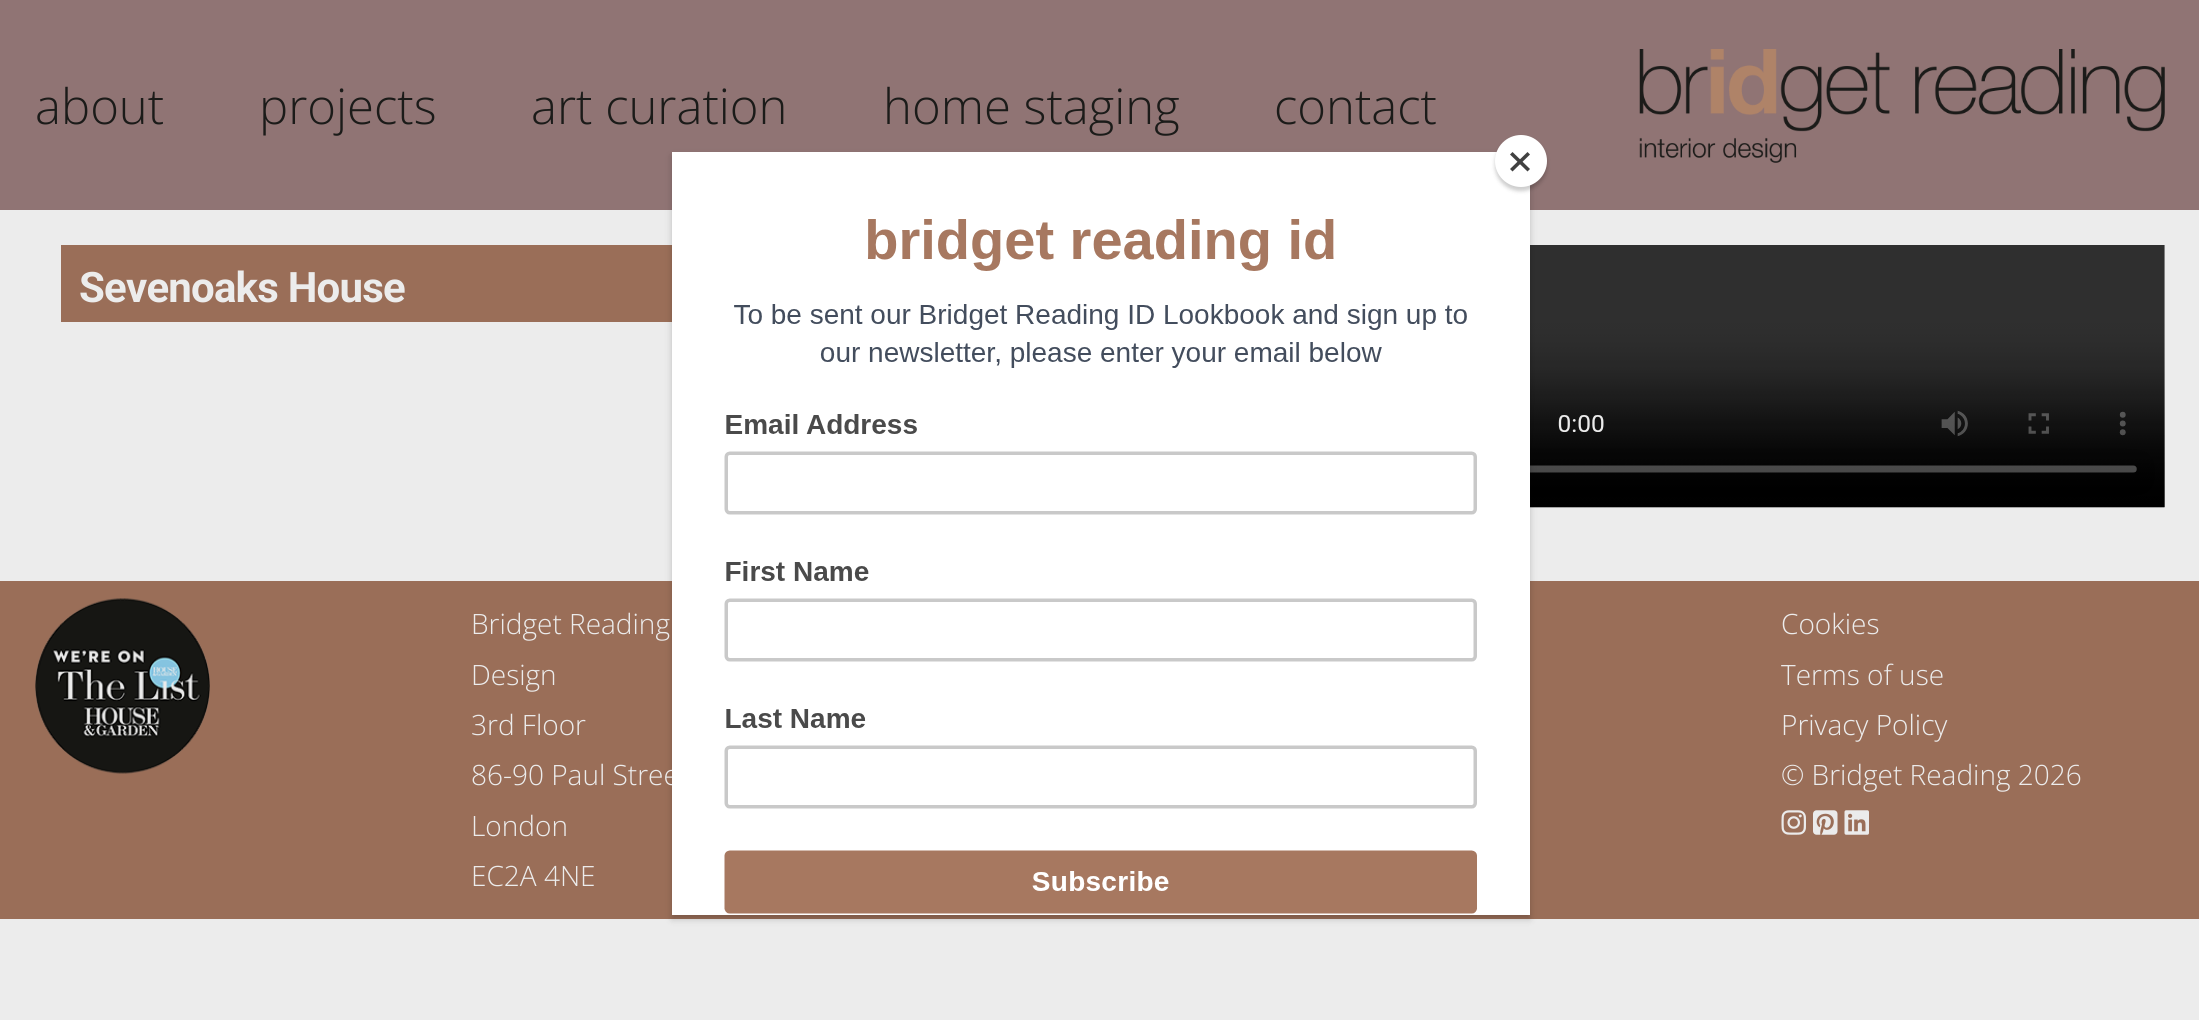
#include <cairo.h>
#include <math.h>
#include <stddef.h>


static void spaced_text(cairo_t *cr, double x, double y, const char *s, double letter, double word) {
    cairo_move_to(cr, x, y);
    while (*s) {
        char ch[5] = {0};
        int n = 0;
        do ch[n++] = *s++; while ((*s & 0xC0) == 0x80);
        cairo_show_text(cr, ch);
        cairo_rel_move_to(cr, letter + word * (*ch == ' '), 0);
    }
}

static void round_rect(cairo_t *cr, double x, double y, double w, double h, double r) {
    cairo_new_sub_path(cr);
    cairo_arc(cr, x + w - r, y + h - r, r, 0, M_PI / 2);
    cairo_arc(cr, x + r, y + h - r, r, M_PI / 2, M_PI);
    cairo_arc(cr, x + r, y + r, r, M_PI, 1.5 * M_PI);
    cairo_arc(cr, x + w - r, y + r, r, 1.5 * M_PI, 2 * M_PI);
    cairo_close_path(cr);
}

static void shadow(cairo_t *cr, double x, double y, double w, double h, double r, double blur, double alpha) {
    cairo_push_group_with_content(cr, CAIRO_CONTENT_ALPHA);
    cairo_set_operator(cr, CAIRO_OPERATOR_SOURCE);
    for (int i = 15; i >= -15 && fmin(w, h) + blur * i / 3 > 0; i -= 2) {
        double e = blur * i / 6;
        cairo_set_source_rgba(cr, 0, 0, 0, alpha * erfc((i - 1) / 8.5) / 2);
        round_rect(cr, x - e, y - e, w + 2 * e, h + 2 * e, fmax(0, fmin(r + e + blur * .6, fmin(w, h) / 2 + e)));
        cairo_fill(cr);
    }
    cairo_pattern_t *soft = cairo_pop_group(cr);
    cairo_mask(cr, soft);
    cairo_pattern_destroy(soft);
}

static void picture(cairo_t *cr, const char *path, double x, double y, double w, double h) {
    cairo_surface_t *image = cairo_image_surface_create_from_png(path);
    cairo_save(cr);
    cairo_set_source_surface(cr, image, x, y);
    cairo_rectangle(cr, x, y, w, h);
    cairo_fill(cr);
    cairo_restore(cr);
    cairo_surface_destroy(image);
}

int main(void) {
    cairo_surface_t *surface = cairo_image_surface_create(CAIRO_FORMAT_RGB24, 2199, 1020);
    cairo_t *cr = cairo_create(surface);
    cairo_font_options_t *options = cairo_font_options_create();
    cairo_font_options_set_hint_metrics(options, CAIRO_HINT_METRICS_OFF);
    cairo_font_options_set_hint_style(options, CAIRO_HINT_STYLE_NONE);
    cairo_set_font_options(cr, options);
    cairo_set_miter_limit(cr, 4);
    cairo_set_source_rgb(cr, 0.922, 0.922, 0.922);
    cairo_paint(cr);
    cairo_set_source_rgb(cr, 0.565, 0.455, 0.455);
    cairo_rectangle(cr, 0, 0, 2199, 210);
    cairo_fill(cr);
    cairo_select_font_face(cr, "Open Sans Light", CAIRO_FONT_SLANT_NORMAL, CAIRO_FONT_WEIGHT_NORMAL);
    cairo_set_font_size(cr, 49);
    cairo_set_source_rgb(cr, 0.106, 0.106, 0.098);
    cairo_move_to(cr, 35, 124);
    cairo_show_text(cr, "about");
    cairo_move_to(cr, 259, 124);
    cairo_show_text(cr, "projects");
    cairo_move_to(cr, 531, 124);
    cairo_show_text(cr, "art curation");
    cairo_move_to(cr, 883, 124);
    cairo_show_text(cr, "home staging");
    cairo_move_to(cr, 1274, 124);
    cairo_show_text(cr, "contact");
    picture(cr, "img1.png", 1639, 49, 526, 114);
    cairo_set_source_rgb(cr, 0.604, 0.431, 0.345);
    cairo_rectangle(cr, 61, 245, 611, 77);
    cairo_fill(cr);
    cairo_select_font_face(cr, "Roboto", CAIRO_FONT_SLANT_NORMAL, CAIRO_FONT_WEIGHT_BOLD);
    cairo_set_font_size(cr, 42);
    cairo_set_source_rgb(cr, 0.922, 0.922, 0.922);
    spaced_text(cr, 79, 302, "Sevenoaks House", -0.8, 0);
    picture(cr, "img2.png", 1530, 245, 635, 263);
    cairo_set_source_rgb(cr, 0.604, 0.431, 0.345);
    cairo_rectangle(cr, 0, 581, 2199, 338);
    cairo_fill(cr);
    cairo_set_source_rgb(cr, 0, 0, 0);
    shadow(cr, 672, 156, 858, 763, 0, 3.5, 0.2);
    cairo_select_font_face(cr, "Open Sans Light", CAIRO_FONT_SLANT_NORMAL, CAIRO_FONT_WEIGHT_NORMAL);
    cairo_set_font_size(cr, 28);
    cairo_set_source_rgb(cr, 0.922, 0.922, 0.922);
    cairo_move_to(cr, 471, 785);
    cairo_show_text(cr, "86-90 Paul Stree");
    picture(cr, "img3.png", 672, 152, 858, 763);
    cairo_set_source_rgb(cr, 0, 0, 0);
    shadow(cr, 1495, 138, 52, 53, 26, 2, 0.2);
    cairo_set_source_rgb(cr, 1, 1, 1);
    cairo_arc(cr, 1521, 161, 26, 0, 2 * M_PI);
    cairo_fill(cr);
    cairo_set_source_rgb(cr, 0.255, 0.255, 0.255);
    cairo_new_path(cr);
    cairo_move_to(cr, 1527.5, 152);
    cairo_line_to(cr, 1530, 154.5);
    cairo_line_to(cr, 1512.5, 171.5);
    cairo_line_to(cr, 1510, 169);
    cairo_close_path(cr);
    cairo_fill(cr);
    cairo_new_path(cr);
    cairo_move_to(cr, 1510, 154.5);
    cairo_line_to(cr, 1512.5, 152);
    cairo_line_to(cr, 1530, 169);
    cairo_line_to(cr, 1527.5, 171.5);
    cairo_close_path(cr);
    cairo_fill(cr);
    picture(cr, "img4.png", 35, 598, 175, 176);
    cairo_set_source_rgb(cr, 0.922, 0.922, 0.922);
    cairo_move_to(cr, 471, 634);
    cairo_show_text(cr, "Bridget Reading");
    cairo_move_to(cr, 471, 685);
    cairo_show_text(cr, "Design");
    cairo_move_to(cr, 471, 735);
    cairo_show_text(cr, "3rd Floor");
    cairo_move_to(cr, 471, 836);
    cairo_show_text(cr, "London");
    cairo_move_to(cr, 471, 886);
    cairo_show_text(cr, "EC2A 4NE");
    cairo_move_to(cr, 1781, 634);
    cairo_show_text(cr, "Cookies");
    cairo_move_to(cr, 1781, 685);
    cairo_show_text(cr, "Terms of use");
    cairo_move_to(cr, 1781, 735);
    cairo_show_text(cr, "Privacy Policy");
    cairo_move_to(cr, 1781, 785);
    cairo_show_text(cr, "© Bridget Reading 2026");
    picture(cr, "img5.png", 1781, 810, 25, 25);
    picture(cr, "img6.png", 1813, 810, 25, 25);
    picture(cr, "img7.png", 1844, 810, 25, 25);
    cairo_surface_write_to_png(surface, "page.png");
    cairo_font_options_destroy(options);
    cairo_destroy(cr);
    cairo_surface_destroy(surface);
    return 0;
}
